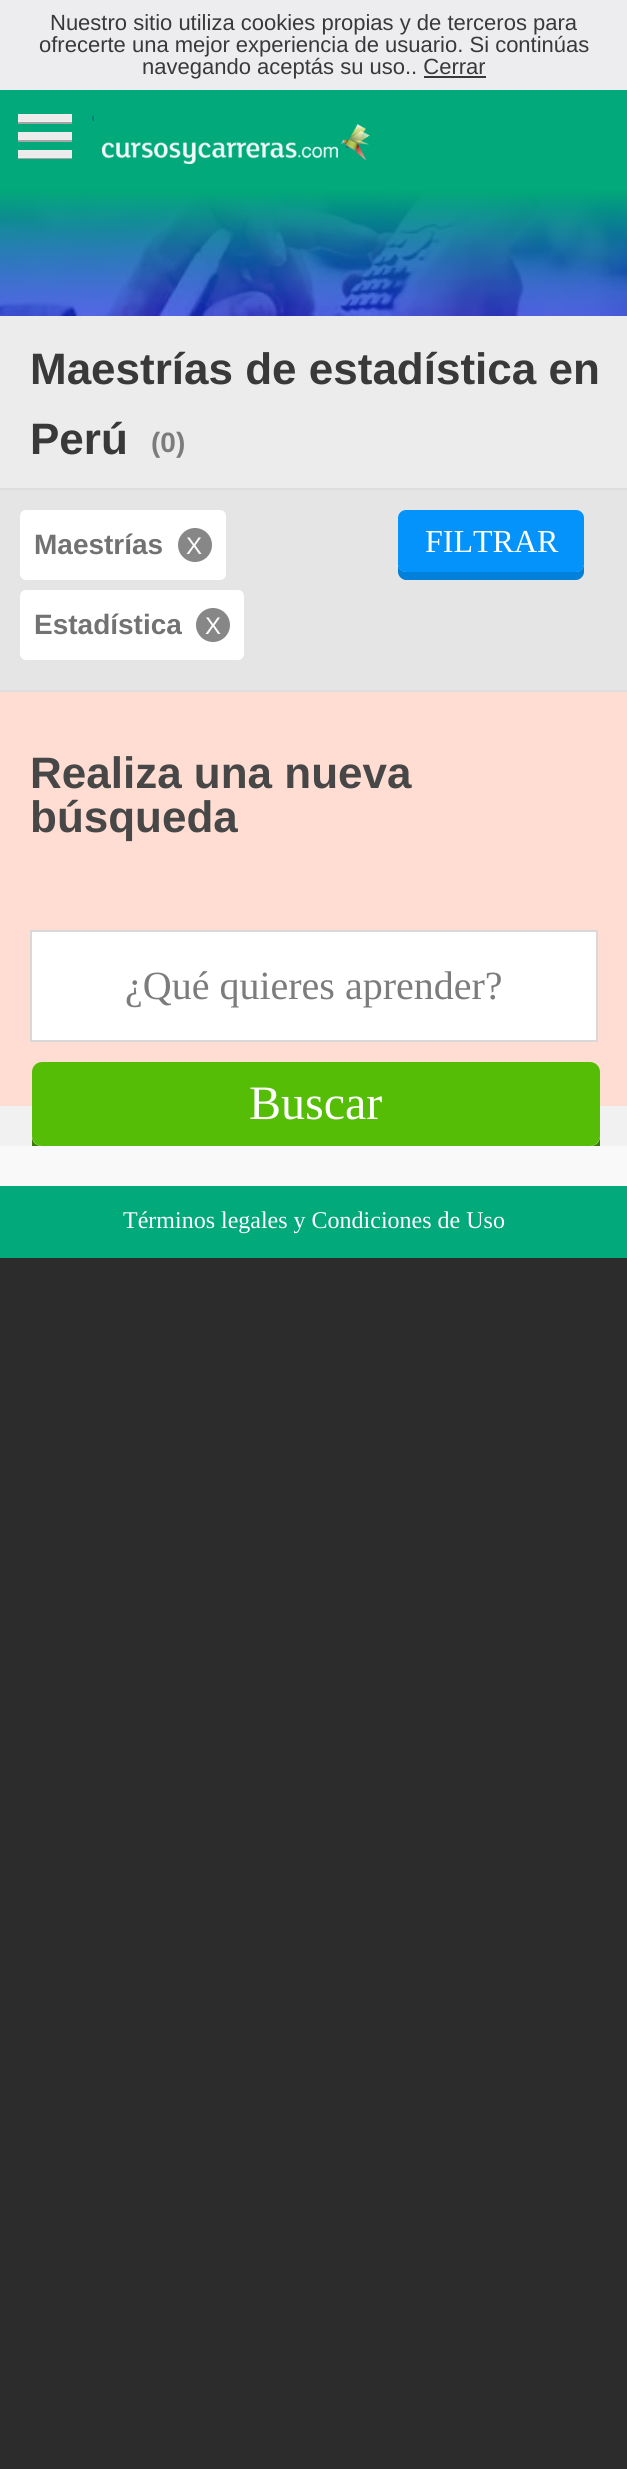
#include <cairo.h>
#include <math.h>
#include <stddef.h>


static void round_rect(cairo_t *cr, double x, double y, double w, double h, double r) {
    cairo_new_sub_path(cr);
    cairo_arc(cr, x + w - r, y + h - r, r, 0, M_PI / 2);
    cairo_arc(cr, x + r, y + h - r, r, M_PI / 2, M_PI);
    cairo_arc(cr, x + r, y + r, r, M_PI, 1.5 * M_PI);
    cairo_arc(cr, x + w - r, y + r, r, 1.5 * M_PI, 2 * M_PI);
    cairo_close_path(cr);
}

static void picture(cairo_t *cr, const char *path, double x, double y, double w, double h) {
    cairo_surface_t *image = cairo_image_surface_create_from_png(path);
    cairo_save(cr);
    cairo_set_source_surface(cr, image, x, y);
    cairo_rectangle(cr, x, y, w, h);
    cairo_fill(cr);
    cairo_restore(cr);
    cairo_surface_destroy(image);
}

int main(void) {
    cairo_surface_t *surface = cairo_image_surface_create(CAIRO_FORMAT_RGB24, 627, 2469);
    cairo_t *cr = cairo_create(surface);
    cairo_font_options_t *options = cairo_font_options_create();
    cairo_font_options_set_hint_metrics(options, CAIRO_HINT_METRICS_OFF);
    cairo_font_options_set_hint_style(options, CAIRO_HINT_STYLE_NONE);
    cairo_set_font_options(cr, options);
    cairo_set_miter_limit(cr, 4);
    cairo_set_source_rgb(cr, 0.173, 0.173, 0.173);
    cairo_paint(cr);
    cairo_set_source_rgb(cr, 0.929, 0.925, 0.937);
    cairo_rectangle(cr, 0, 0, 627, 90);
    cairo_fill(cr);
    cairo_select_font_face(cr, "Liberation Sans", CAIRO_FONT_SLANT_NORMAL, CAIRO_FONT_WEIGHT_NORMAL);
    cairo_set_font_size(cr, 22);
    cairo_set_source_rgb(cr, 0.224, 0.224, 0.224);
    cairo_move_to(cr, 50, 30);
    cairo_show_text(cr, "Nuestro sitio utiliza cookies propias y de terceros para");
    cairo_move_to(cr, 39, 52);
    cairo_show_text(cr, "ofrecerte una mejor experiencia de usuario. Si continúas");
    cairo_move_to(cr, 142, 74);
    cairo_show_text(cr, "navegando aceptás su uso.. Cerrar");
    cairo_rectangle(cr, 424, 76, 62, 2);
    cairo_fill(cr);
    cairo_set_source_rgb(cr, 0.004, 0.663, 0.482);
    cairo_rectangle(cr, 0, 90, 627, 100);
    cairo_fill(cr);
    picture(cr, "img1.png", 18, 114, 76, 45);
    picture(cr, "img2.png", 102, 124, 268, 40);
    picture(cr, "img3.png", 0, 190, 627, 126);
    cairo_set_source_rgb(cr, 0.976, 0.976, 0.976);
    cairo_rectangle(cr, 0, 1146, 627, 40);
    cairo_fill(cr);
    cairo_set_source_rgb(cr, 0.925, 0.925, 0.925);
    cairo_rectangle(cr, 0, 316, 627, 172);
    cairo_fill(cr);
    cairo_select_font_face(cr, "Liberation Sans", CAIRO_FONT_SLANT_NORMAL, CAIRO_FONT_WEIGHT_BOLD);
    cairo_set_font_size(cr, 44);
    cairo_set_source_rgb(cr, 0.224, 0.224, 0.224);
    cairo_move_to(cr, 30, 384);
    cairo_show_text(cr, "Maestrías de estadística en");
    cairo_move_to(cr, 30, 454);
    cairo_show_text(cr, "Perú");
    cairo_set_font_size(cr, 28);
    cairo_set_source_rgb(cr, 0.486, 0.486, 0.486);
    cairo_move_to(cr, 151, 452);
    cairo_show_text(cr, "(0)");
    cairo_set_source_rgb(cr, 0.867, 0.867, 0.867);
    cairo_rectangle(cr, 0, 488, 627, 2);
    cairo_fill(cr);
    cairo_set_source_rgb(cr, 0.898, 0.898, 0.898);
    cairo_rectangle(cr, 0, 490, 627, 200);
    cairo_fill(cr);
    cairo_set_source_rgb(cr, 0.867, 0.867, 0.867);
    cairo_rectangle(cr, 0, 690, 627, 2);
    cairo_fill(cr);
    cairo_set_source_rgb(cr, 1, 1, 1);
    round_rect(cr, 20, 510, 206, 70, 6);
    cairo_fill(cr);
    cairo_set_source_rgb(cr, 0.451, 0.447, 0.447);
    cairo_move_to(cr, 34, 554);
    cairo_show_text(cr, "Maestrías");
    cairo_set_source_rgb(cr, 0.529, 0.529, 0.529);
    cairo_new_path(cr);
    cairo_arc(cr, 195, 545, 17, 0, 2 * M_PI);
    cairo_fill(cr);
    cairo_select_font_face(cr, "Liberation Sans", CAIRO_FONT_SLANT_NORMAL, CAIRO_FONT_WEIGHT_NORMAL);
    cairo_set_font_size(cr, 24);
    cairo_set_source_rgb(cr, 1, 1, 1);
    cairo_move_to(cr, 186, 554);
    cairo_show_text(cr, "X");
    round_rect(cr, 20, 590, 224, 70, 6);
    cairo_fill(cr);
    cairo_select_font_face(cr, "Liberation Sans", CAIRO_FONT_SLANT_NORMAL, CAIRO_FONT_WEIGHT_BOLD);
    cairo_set_font_size(cr, 28);
    cairo_set_source_rgb(cr, 0.451, 0.447, 0.447);
    cairo_move_to(cr, 34, 634);
    cairo_show_text(cr, "Estadística");
    cairo_set_source_rgb(cr, 0.529, 0.529, 0.529);
    cairo_new_path(cr);
    cairo_arc(cr, 213, 625, 17, 0, 2 * M_PI);
    cairo_fill(cr);
    cairo_select_font_face(cr, "Liberation Sans", CAIRO_FONT_SLANT_NORMAL, CAIRO_FONT_WEIGHT_NORMAL);
    cairo_set_font_size(cr, 24);
    cairo_set_source_rgb(cr, 1, 1, 1);
    cairo_move_to(cr, 205, 634);
    cairo_show_text(cr, "X");
    cairo_set_source_rgb(cr, 0.008, 0.502, 0.855);
    cairo_new_path(cr);
    cairo_move_to(cr, 398, 564);
    cairo_line_to(cr, 398, 572);
    cairo_curve_to(cr, 398, 576, 402, 580, 406, 580);
    cairo_line_to(cr, 576, 580);
    cairo_curve_to(cr, 580, 580, 584, 576, 584, 572);
    cairo_line_to(cr, 584, 564);
    cairo_curve_to(cr, 584, 568, 580, 572, 576, 572);
    cairo_line_to(cr, 406, 572);
    cairo_curve_to(cr, 402, 572, 398, 568, 398, 564);
    cairo_close_path(cr);
    cairo_fill(cr);
    cairo_set_source_rgb(cr, 0.012, 0.576, 0.98);
    round_rect(cr, 398, 510, 186, 62, 8);
    cairo_fill(cr);
    cairo_select_font_face(cr, "Liberation Serif", CAIRO_FONT_SLANT_NORMAL, CAIRO_FONT_WEIGHT_NORMAL);
    cairo_set_font_size(cr, 32);
    cairo_set_source_rgb(cr, 1, 1, 1);
    cairo_move_to(cr, 425, 552);
    cairo_show_text(cr, "FILTRAR");
    cairo_set_source_rgb(cr, 0.945, 0.945, 0.945);
    cairo_rectangle(cr, 0, 1106, 627, 40);
    cairo_fill(cr);
    cairo_set_source_rgb(cr, 1, 0.867, 0.824);
    cairo_rectangle(cr, 0, 692, 627, 414);
    cairo_fill(cr);
    cairo_select_font_face(cr, "Liberation Sans", CAIRO_FONT_SLANT_NORMAL, CAIRO_FONT_WEIGHT_BOLD);
    cairo_set_font_size(cr, 44);
    cairo_set_source_rgb(cr, 0.278, 0.278, 0.278);
    cairo_move_to(cr, 30, 788);
    cairo_show_text(cr, "Realiza una nueva");
    cairo_move_to(cr, 30, 832);
    cairo_show_text(cr, "búsqueda");
    cairo_set_source_rgb(cr, 1, 1, 1);
    cairo_rectangle(cr, 31, 931, 566, 110);
    cairo_fill_preserve(cr);
    cairo_set_source_rgb(cr, 0.847, 0.847, 0.847);
    cairo_stroke(cr);
    cairo_select_font_face(cr, "Liberation Serif", CAIRO_FONT_SLANT_NORMAL, CAIRO_FONT_WEIGHT_NORMAL);
    cairo_set_font_size(cr, 40);
    cairo_set_source_rgb(cr, 0.486, 0.486, 0.486);
    cairo_move_to(cr, 125, 999);
    cairo_show_text(cr, "¿Qué quieres aprender?");
    cairo_save(cr);
    cairo_rectangle(cr, 0, 490, 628, 656);
    cairo_clip(cr);
    cairo_set_source_rgb(cr, 0.224, 0.494, 0.016);
    cairo_new_path(cr);
    cairo_move_to(cr, 32, 1136);
    cairo_line_to(cr, 32, 1148);
    cairo_curve_to(cr, 32, 1154, 36, 1158, 42, 1158);
    cairo_line_to(cr, 590, 1158);
    cairo_curve_to(cr, 596, 1158, 600, 1154, 600, 1148);
    cairo_line_to(cr, 600, 1136);
    cairo_curve_to(cr, 600, 1142, 596, 1146, 590, 1146);
    cairo_line_to(cr, 42, 1146);
    cairo_curve_to(cr, 36, 1146, 32, 1142, 32, 1136);
    cairo_close_path(cr);
    cairo_fill(cr);
    cairo_restore(cr);
    cairo_set_source_rgb(cr, 0.337, 0.741, 0.024);
    round_rect(cr, 32, 1062, 568, 84, 10);
    cairo_fill(cr);
    cairo_set_font_size(cr, 48);
    cairo_set_source_rgb(cr, 1, 1, 1);
    cairo_move_to(cr, 249, 1119);
    cairo_show_text(cr, "Buscar");
    cairo_set_source_rgb(cr, 0.004, 0.663, 0.482);
    cairo_rectangle(cr, 0, 1186, 627, 72);
    cairo_fill(cr);
    cairo_set_font_size(cr, 24);
    cairo_set_source_rgb(cr, 1, 1, 1);
    cairo_move_to(cr, 123, 1228);
    cairo_show_text(cr, "Términos legales y Condiciones de Uso");
    cairo_surface_write_to_png(surface, "page.png");
    cairo_font_options_destroy(options);
    cairo_destroy(cr);
    cairo_surface_destroy(surface);
    return 0;
}
